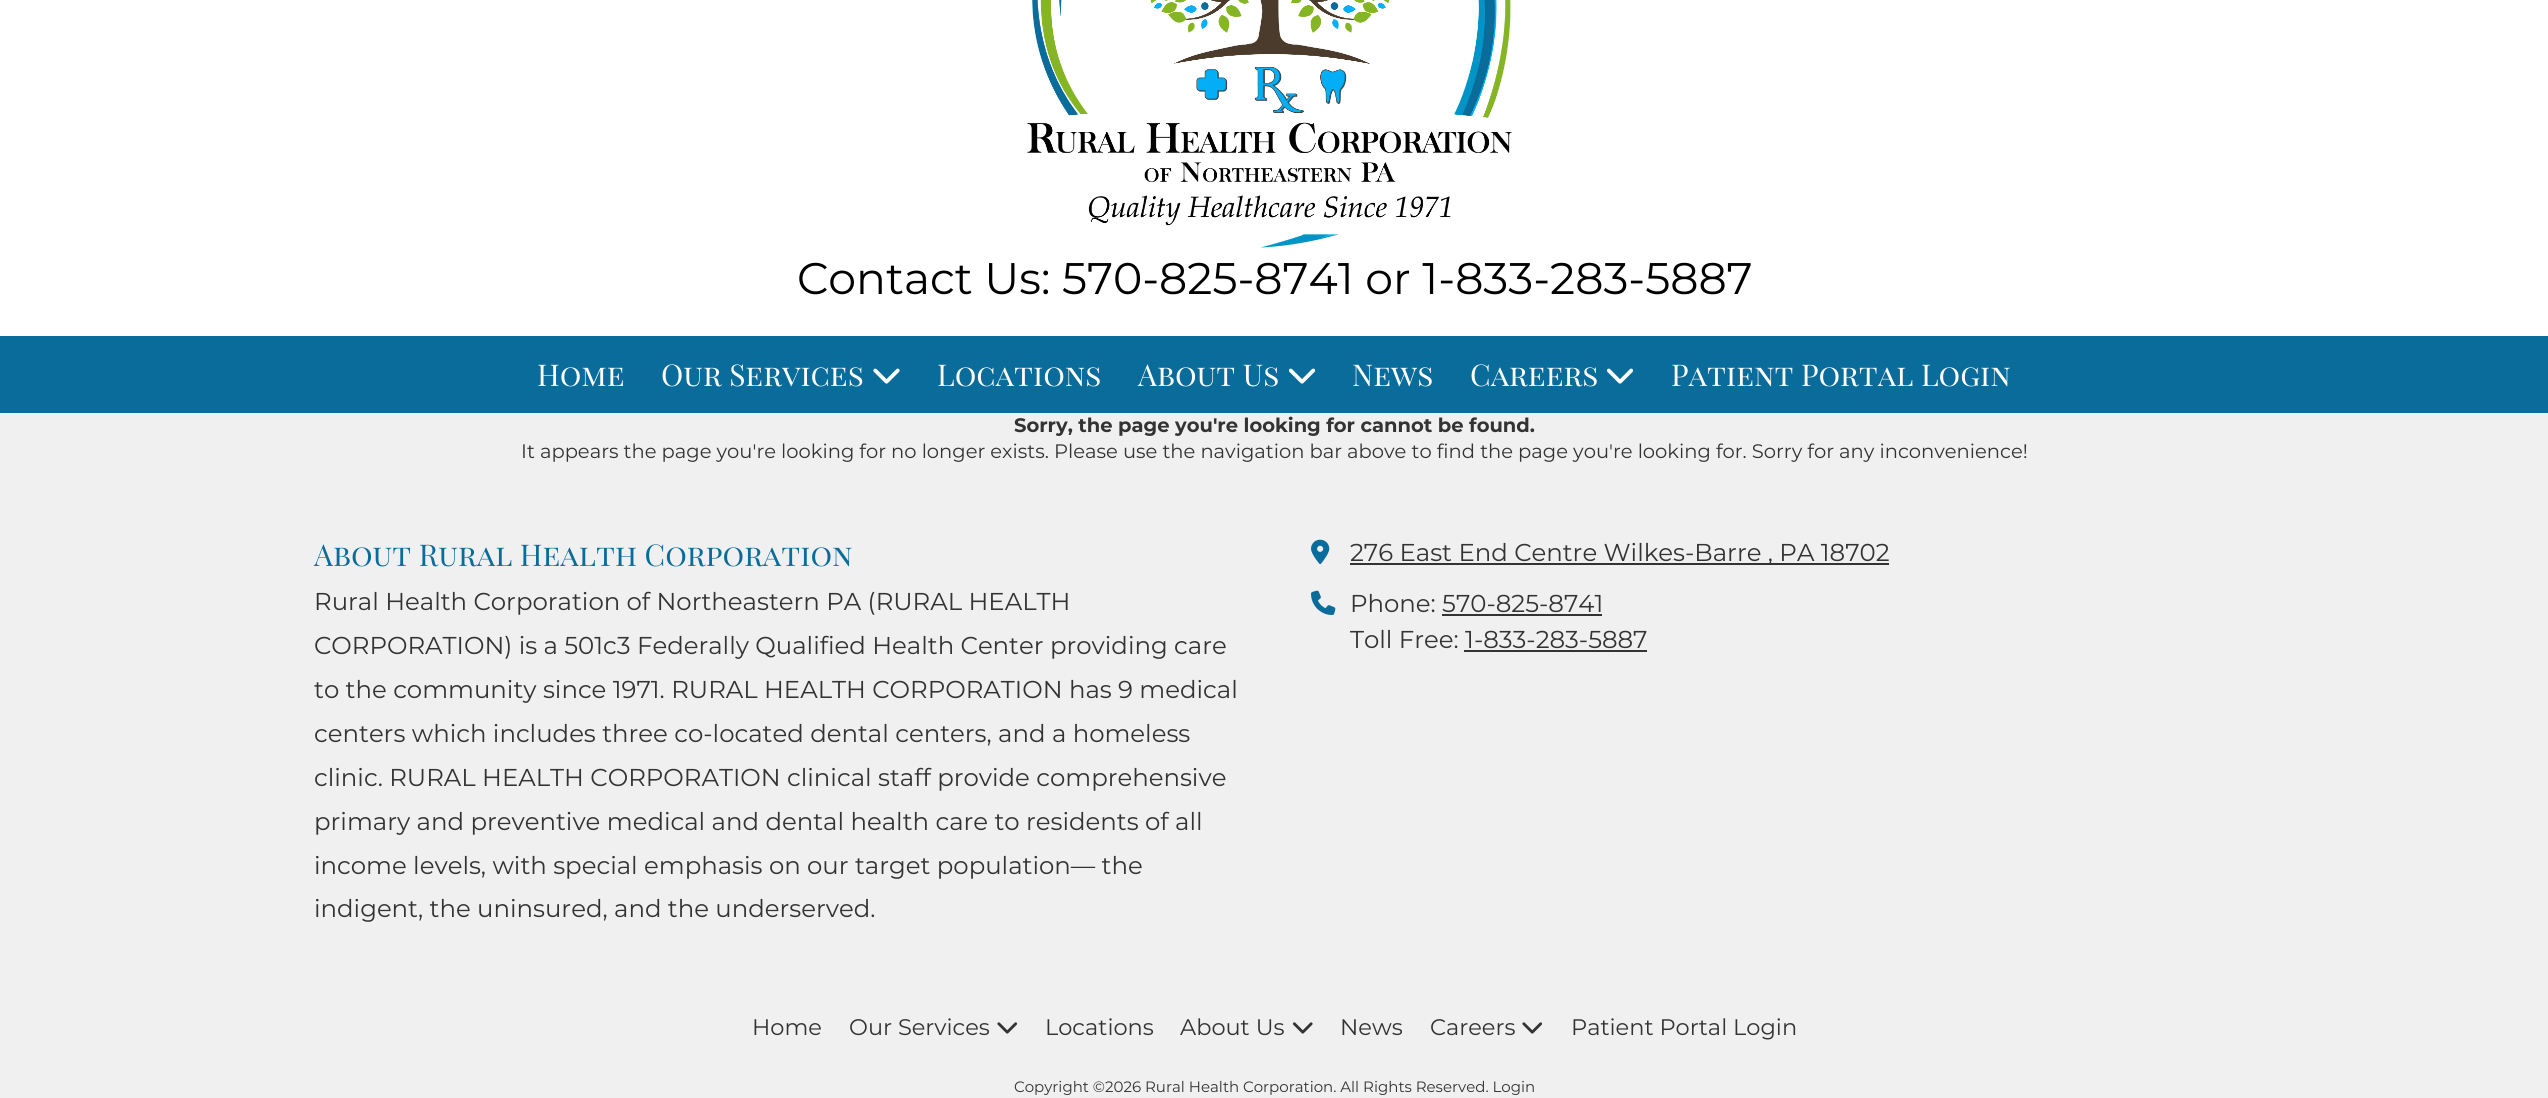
#include <cairo.h>
#include <math.h>
#include <stddef.h>


static void picture(cairo_t *cr, const char *path, double x, double y, double w, double h) {
    cairo_surface_t *image = cairo_image_surface_create_from_png(path);
    cairo_save(cr);
    cairo_set_source_surface(cr, image, x, y);
    cairo_rectangle(cr, x, y, w, h);
    cairo_fill(cr);
    cairo_restore(cr);
    cairo_surface_destroy(image);
}

int main(void) {
    cairo_surface_t *surface = cairo_image_surface_create(CAIRO_FORMAT_RGB24, 2548, 1098);
    cairo_t *cr = cairo_create(surface);
    cairo_font_options_t *options = cairo_font_options_create();
    cairo_font_options_set_hint_metrics(options, CAIRO_HINT_METRICS_OFF);
    cairo_font_options_set_hint_style(options, CAIRO_HINT_STYLE_NONE);
    cairo_set_font_options(cr, options);
    cairo_set_miter_limit(cr, 4);
    cairo_set_source_rgb(cr, 0.941, 0.941, 0.941);
    cairo_paint(cr);
    cairo_set_source_rgb(cr, 1, 1, 1);
    cairo_rectangle(cr, 0, 0, 2548, 336);
    cairo_fill(cr);
    picture(cr, "img1.png", 1027, 0, 485, 248);
    cairo_select_font_face(cr, "Montserrat", CAIRO_FONT_SLANT_NORMAL, CAIRO_FONT_WEIGHT_NORMAL);
    cairo_set_font_size(cr, 44.2);
    cairo_set_source_rgb(cr, 0, 0, 0);
    cairo_move_to(cr, 797, 294);
    cairo_show_text(cr, "Contact Us: 570-825-8741 or 1-833-283-5887");
    cairo_set_source_rgb(cr, 0.039, 0.424, 0.608);
    cairo_rectangle(cr, 0, 336, 2548, 77);
    cairo_fill(cr);
    cairo_select_font_face(cr, "Playfair Display SC", CAIRO_FONT_SLANT_NORMAL, CAIRO_FONT_WEIGHT_NORMAL);
    cairo_set_font_size(cr, 30);
    cairo_set_source_rgb(cr, 1, 1, 1);
    cairo_move_to(cr, 537, 386);
    cairo_show_text(cr, "Home");
    cairo_move_to(cr, 661, 386);
    cairo_show_text(cr, "Our Services");
    picture(cr, "img2.png", 873, 368, 27, 16);
    cairo_move_to(cr, 937, 386);
    cairo_show_text(cr, "Locations");
    cairo_move_to(cr, 1138, 386);
    cairo_show_text(cr, "About Us");
    picture(cr, "img3.png", 1288, 368, 28, 16);
    cairo_move_to(cr, 1352, 386);
    cairo_show_text(cr, "News");
    cairo_move_to(cr, 1470, 386);
    cairo_show_text(cr, "Careers");
    picture(cr, "img3.png", 1606, 368, 28, 16);
    cairo_move_to(cr, 1671, 386);
    cairo_show_text(cr, "Patient Portal Login");
    cairo_select_font_face(cr, "Montserrat", CAIRO_FONT_SLANT_NORMAL, CAIRO_FONT_WEIGHT_BOLD);
    cairo_set_font_size(cr, 19.5);
    cairo_set_source_rgb(cr, 0.2, 0.2, 0.2);
    cairo_move_to(cr, 1014, 432);
    cairo_show_text(cr, "Sorry, the page you're looking for cannot be found.");
    cairo_select_font_face(cr, "Montserrat", CAIRO_FONT_SLANT_NORMAL, CAIRO_FONT_WEIGHT_NORMAL);
    cairo_move_to(cr, 521, 458);
    cairo_show_text(cr, "It appears the page you're looking for no longer exists. Please use the navigation bar above to find the page you're looking for. Sorry for any inconvenience!");
    cairo_select_font_face(cr, "Playfair Display SC", CAIRO_FONT_SLANT_NORMAL, CAIRO_FONT_WEIGHT_NORMAL);
    cairo_set_font_size(cr, 30);
    cairo_set_source_rgb(cr, 0.039, 0.424, 0.608);
    cairo_move_to(cr, 314, 566);
    cairo_show_text(cr, "About Rural Health Corporation");
    cairo_select_font_face(cr, "Montserrat", CAIRO_FONT_SLANT_NORMAL, CAIRO_FONT_WEIGHT_NORMAL);
    cairo_set_font_size(cr, 24.4);
    cairo_set_source_rgb(cr, 0.2, 0.2, 0.2);
    cairo_move_to(cr, 314, 610);
    cairo_show_text(cr, "Rural Health Corporation of Northeastern PA (RURAL HEALTH");
    cairo_move_to(cr, 314, 654);
    cairo_show_text(cr, "CORPORATION) is a 501c3 Federally Qualified Health Center providing care");
    cairo_move_to(cr, 314, 698);
    cairo_show_text(cr, "to the community since 1971. RURAL HEALTH CORPORATION has 9 medical");
    cairo_move_to(cr, 314, 742);
    cairo_show_text(cr, "centers which includes three co-located dental centers, and a homeless");
    cairo_move_to(cr, 314, 786);
    cairo_show_text(cr, "clinic. RURAL HEALTH CORPORATION clinical staff provide comprehensive");
    cairo_move_to(cr, 314, 830);
    cairo_show_text(cr, "primary and preventive medical and dental health care to residents of all");
    cairo_move_to(cr, 314, 874);
    cairo_show_text(cr, "income levels, with special emphasis on our target population— the");
    cairo_move_to(cr, 314, 917);
    cairo_show_text(cr, "indigent, the uninsured, and the underserved.");
    picture(cr, "img4.png", 1311, 539, 19, 25);
    cairo_rectangle(cr, 1350, 563, 539, 2);
    cairo_fill(cr);
    cairo_move_to(cr, 1350, 561);
    cairo_show_text(cr, "276 East End Centre Wilkes-Barre , PA 18702");
    picture(cr, "img5.png", 1311, 590, 25, 25);
    cairo_move_to(cr, 1350, 612);
    cairo_show_text(cr, "Phone: 570-825-8741");
    cairo_rectangle(cr, 1442, 614, 160, 2);
    cairo_fill(cr);
    cairo_move_to(cr, 1350, 648);
    cairo_show_text(cr, "Toll Free: 1-833-283-5887");
    cairo_rectangle(cr, 1464, 650, 183, 2);
    cairo_fill(cr);
    cairo_set_font_size(cr, 22.5);
    cairo_move_to(cr, 752, 1035);
    cairo_show_text(cr, "Home");
    cairo_move_to(cr, 849, 1035);
    cairo_show_text(cr, "Our Services");
    picture(cr, "img6.png", 997, 1022, 21, 12);
    cairo_move_to(cr, 1045, 1035);
    cairo_show_text(cr, "Locations");
    cairo_move_to(cr, 1180, 1035);
    cairo_show_text(cr, "About Us");
    picture(cr, "img7.png", 1292, 1022, 21, 12);
    cairo_move_to(cr, 1340, 1035);
    cairo_show_text(cr, "News");
    cairo_move_to(cr, 1430, 1035);
    cairo_show_text(cr, "Careers");
    picture(cr, "img6.png", 1522, 1022, 21, 12);
    cairo_move_to(cr, 1571, 1035);
    cairo_show_text(cr, "Patient Portal Login");
    cairo_set_font_size(cr, 15);
    cairo_move_to(cr, 1014, 1092);
    cairo_show_text(cr, "Copyright ©2026 Rural Health Corporation. All Rights Reserved. Login");
    cairo_surface_write_to_png(surface, "page.png");
    cairo_font_options_destroy(options);
    cairo_destroy(cr);
    cairo_surface_destroy(surface);
    return 0;
}
